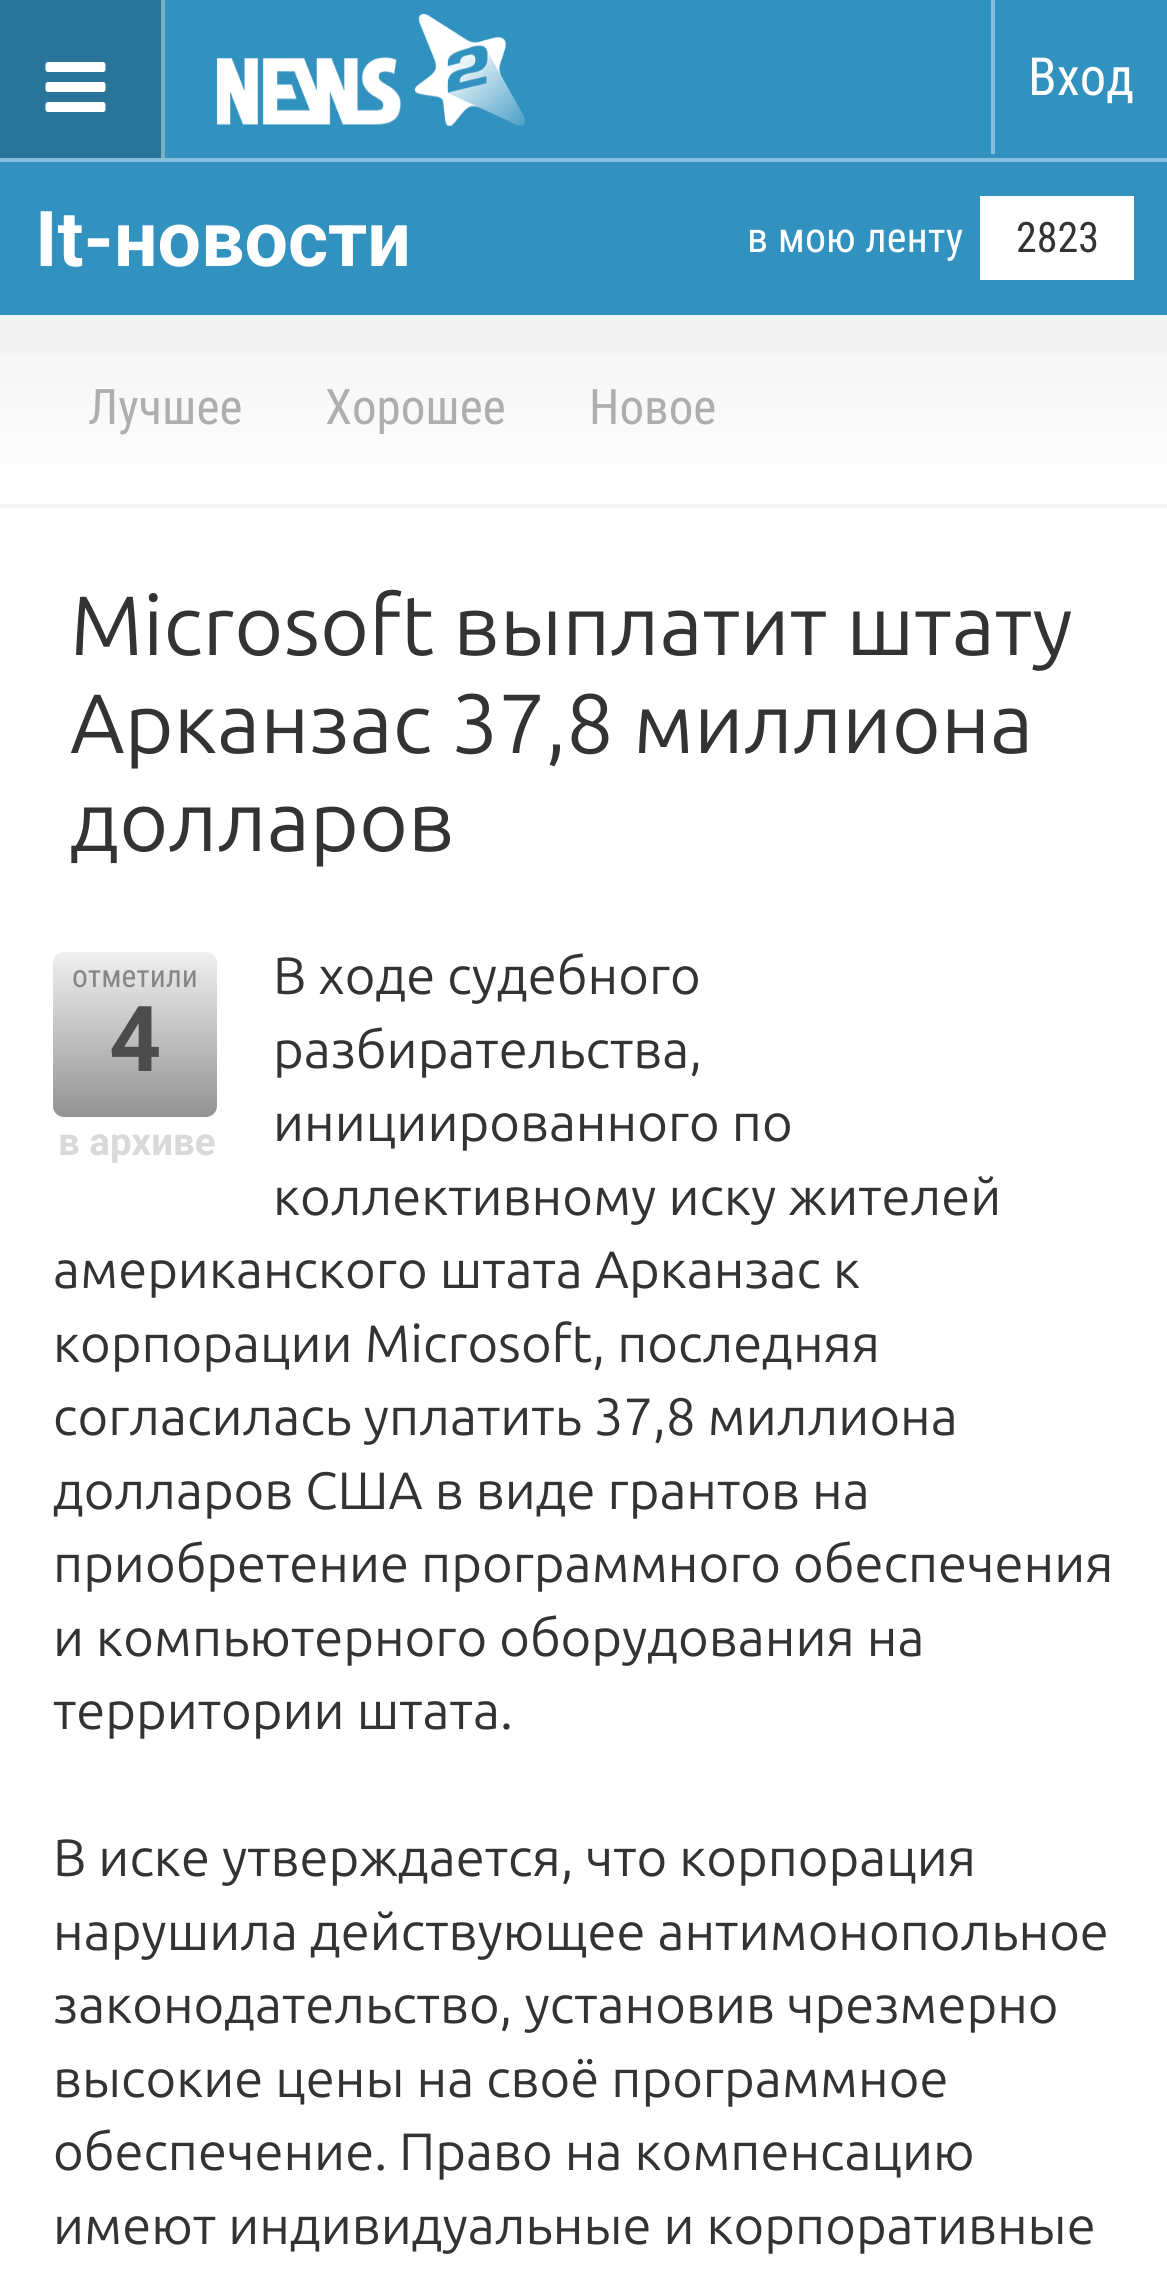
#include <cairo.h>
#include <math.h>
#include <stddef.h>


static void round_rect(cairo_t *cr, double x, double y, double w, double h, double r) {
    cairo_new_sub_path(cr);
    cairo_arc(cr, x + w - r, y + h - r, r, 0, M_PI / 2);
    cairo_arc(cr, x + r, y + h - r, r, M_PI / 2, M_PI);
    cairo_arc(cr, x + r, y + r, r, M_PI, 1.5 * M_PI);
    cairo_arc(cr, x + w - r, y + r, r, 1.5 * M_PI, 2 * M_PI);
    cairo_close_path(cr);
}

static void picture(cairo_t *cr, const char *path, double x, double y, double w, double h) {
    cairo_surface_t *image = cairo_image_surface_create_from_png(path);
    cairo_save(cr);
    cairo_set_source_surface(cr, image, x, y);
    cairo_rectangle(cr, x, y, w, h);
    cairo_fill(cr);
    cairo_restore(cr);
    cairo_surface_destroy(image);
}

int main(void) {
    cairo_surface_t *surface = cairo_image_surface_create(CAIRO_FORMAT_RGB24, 1167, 2294);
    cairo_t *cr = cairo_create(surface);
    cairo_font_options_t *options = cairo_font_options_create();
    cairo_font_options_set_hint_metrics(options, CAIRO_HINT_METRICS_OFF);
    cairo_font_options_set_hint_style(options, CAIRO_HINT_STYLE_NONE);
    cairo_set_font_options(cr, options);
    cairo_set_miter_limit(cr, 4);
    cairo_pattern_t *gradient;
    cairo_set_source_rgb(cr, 0.953, 0.953, 0.953);
    cairo_paint(cr);
    cairo_set_source_rgb(cr, 0.196, 0.573, 0.749);
    cairo_rectangle(cr, 0, 0, 1167, 315);
    cairo_fill(cr);
    cairo_set_source_rgb(cr, 0.157, 0.459, 0.6);
    cairo_rectangle(cr, 0, 0, 161, 158);
    cairo_fill(cr);
    cairo_set_source_rgb(cr, 0.494, 0.675, 0.761);
    cairo_rectangle(cr, 161, 0, 4, 158);
    cairo_fill(cr);
    picture(cr, "img1.png", 45, 62, 61, 50);
    picture(cr, "img2.png", 217, 14, 308, 112);
    cairo_set_source_rgb(cr, 0.518, 0.745, 0.851);
    cairo_rectangle(cr, 991, 0, 4, 154);
    cairo_fill(cr);
    cairo_select_font_face(cr, "Roboto Condensed", CAIRO_FONT_SLANT_NORMAL, CAIRO_FONT_WEIGHT_NORMAL);
    cairo_set_font_size(cr, 52.5);
    cairo_set_source_rgb(cr, 1, 1, 1);
    cairo_move_to(cr, 1028, 95);
    cairo_show_text(cr, "Вход");
    cairo_set_source_rgb(cr, 0.518, 0.745, 0.851);
    cairo_rectangle(cr, 0, 158, 1167, 4);
    cairo_fill(cr);
    cairo_select_font_face(cr, "Roboto", CAIRO_FONT_SLANT_NORMAL, CAIRO_FONT_WEIGHT_BOLD);
    cairo_set_font_size(cr, 77);
    cairo_set_source_rgb(cr, 1, 1, 1);
    cairo_move_to(cr, 35, 266);
    cairo_show_text(cr, "It-новости");
    cairo_select_font_face(cr, "Roboto Condensed", CAIRO_FONT_SLANT_NORMAL, CAIRO_FONT_WEIGHT_NORMAL);
    cairo_set_font_size(cr, 42);
    cairo_move_to(cr, 747, 252);
    cairo_show_text(cr, "в мою ленту");
    cairo_rectangle(cr, 980, 196, 154, 84);
    cairo_fill(cr);
    cairo_set_source_rgb(cr, 0.2, 0.2, 0.2);
    cairo_move_to(cr, 1016, 252);
    cairo_show_text(cr, "2823");
    gradient = cairo_pattern_create_linear(585, 315, 585, 504);
    cairo_pattern_add_color_stop_rgba(gradient, 0, 0.953, 0.953, 0.953, 1);
    cairo_pattern_add_color_stop_rgba(gradient, 1, 1, 1, 1, 1);
    cairo_set_source(cr, gradient);
    cairo_pattern_destroy(gradient);
    cairo_rectangle(cr, 0, 354, 1167, 150);
    cairo_fill(cr);
    cairo_set_font_size(cr, 49);
    cairo_set_source_rgb(cr, 0.682, 0.682, 0.682);
    cairo_move_to(cr, 88, 424);
    cairo_show_text(cr, "Лучшее");
    cairo_move_to(cr, 325, 424);
    cairo_show_text(cr, "Хорошее");
    cairo_move_to(cr, 589, 424);
    cairo_show_text(cr, "Новое");
    cairo_set_source_rgb(cr, 1, 1, 1);
    cairo_rectangle(cr, 0, 508, 1167, 1786);
    cairo_fill(cr);
    cairo_select_font_face(cr, "Ubuntu", CAIRO_FONT_SLANT_NORMAL, CAIRO_FONT_WEIGHT_NORMAL);
    cairo_set_font_size(cr, 84);
    cairo_set_source_rgb(cr, 0.2, 0.2, 0.2);
    cairo_move_to(cr, 70, 655);
    cairo_show_text(cr, "Microsoft выплатит штату");
    cairo_move_to(cr, 70, 753);
    cairo_show_text(cr, "Арканзас 37,8 миллиона");
    cairo_move_to(cr, 70, 851);
    cairo_show_text(cr, "долларов");
    cairo_set_font_size(cr, 52.5);
    cairo_move_to(cr, 273, 994);
    cairo_show_text(cr, "В ходе судебного");
    cairo_move_to(cr, 273, 1068);
    cairo_show_text(cr, "разбирательства,");
    cairo_move_to(cr, 273, 1141);
    cairo_show_text(cr, "инициированного по");
    cairo_move_to(cr, 273, 1215);
    cairo_show_text(cr, "коллективному иску жителей");
    cairo_move_to(cr, 53, 1288);
    cairo_show_text(cr, "американского штата Арканзас к");
    cairo_move_to(cr, 53, 1362);
    cairo_show_text(cr, "корпорации Microsoft, последняя");
    cairo_move_to(cr, 53, 1435);
    cairo_show_text(cr, "согласилась уплатить 37,8 миллиона");
    cairo_move_to(cr, 53, 1509);
    cairo_show_text(cr, "долларов США в виде грантов на");
    cairo_move_to(cr, 53, 1582);
    cairo_show_text(cr, "приобретение программного обеспечения");
    cairo_move_to(cr, 53, 1656);
    cairo_show_text(cr, "и компьютерного оборудования на");
    cairo_move_to(cr, 53, 1729);
    cairo_show_text(cr, "территории штата.");
    cairo_move_to(cr, 53, 1876);
    cairo_show_text(cr, "В иске утверждается, что корпорация");
    cairo_move_to(cr, 53, 1950);
    cairo_show_text(cr, "нарушила действующее антимонопольное");
    cairo_move_to(cr, 53, 2023);
    cairo_show_text(cr, "законодательство, установив чрезмерно");
    cairo_move_to(cr, 53, 2097);
    cairo_show_text(cr, "высокие цены на своё программное");
    cairo_move_to(cr, 53, 2170);
    cairo_show_text(cr, "обеспечение. Право на компенсацию");
    cairo_move_to(cr, 53, 2244);
    cairo_show_text(cr, "имеют индивидуальные и корпоративные");
    gradient = cairo_pattern_create_linear(135, 952, 135, 1117);
    cairo_pattern_add_color_stop_rgba(gradient, 0, 0.941, 0.941, 0.941, 1);
    cairo_pattern_add_color_stop_rgba(gradient, 1, 0.576, 0.576, 0.576, 1);
    cairo_set_source(cr, gradient);
    cairo_pattern_destroy(gradient);
    round_rect(cr, 53, 952, 164, 165, 11);
    cairo_fill(cr);
    cairo_select_font_face(cr, "Roboto Condensed", CAIRO_FONT_SLANT_NORMAL, CAIRO_FONT_WEIGHT_NORMAL);
    cairo_set_font_size(cr, 31.5);
    cairo_set_source_rgb(cr, 0.529, 0.529, 0.529);
    cairo_move_to(cr, 72, 987);
    cairo_show_text(cr, "отметили");
    cairo_select_font_face(cr, "Roboto", CAIRO_FONT_SLANT_NORMAL, CAIRO_FONT_WEIGHT_BOLD);
    cairo_set_font_size(cr, 91);
    cairo_set_source_rgb(cr, 0.298, 0.298, 0.298);
    cairo_move_to(cr, 109, 1071);
    cairo_show_text(cr, "4");
    cairo_set_font_size(cr, 38.5);
    cairo_set_source_rgb(cr, 0.851, 0.851, 0.851);
    cairo_move_to(cr, 58, 1155);
    cairo_show_text(cr, "в архиве");
    cairo_surface_write_to_png(surface, "page.png");
    cairo_font_options_destroy(options);
    cairo_destroy(cr);
    cairo_surface_destroy(surface);
    return 0;
}
